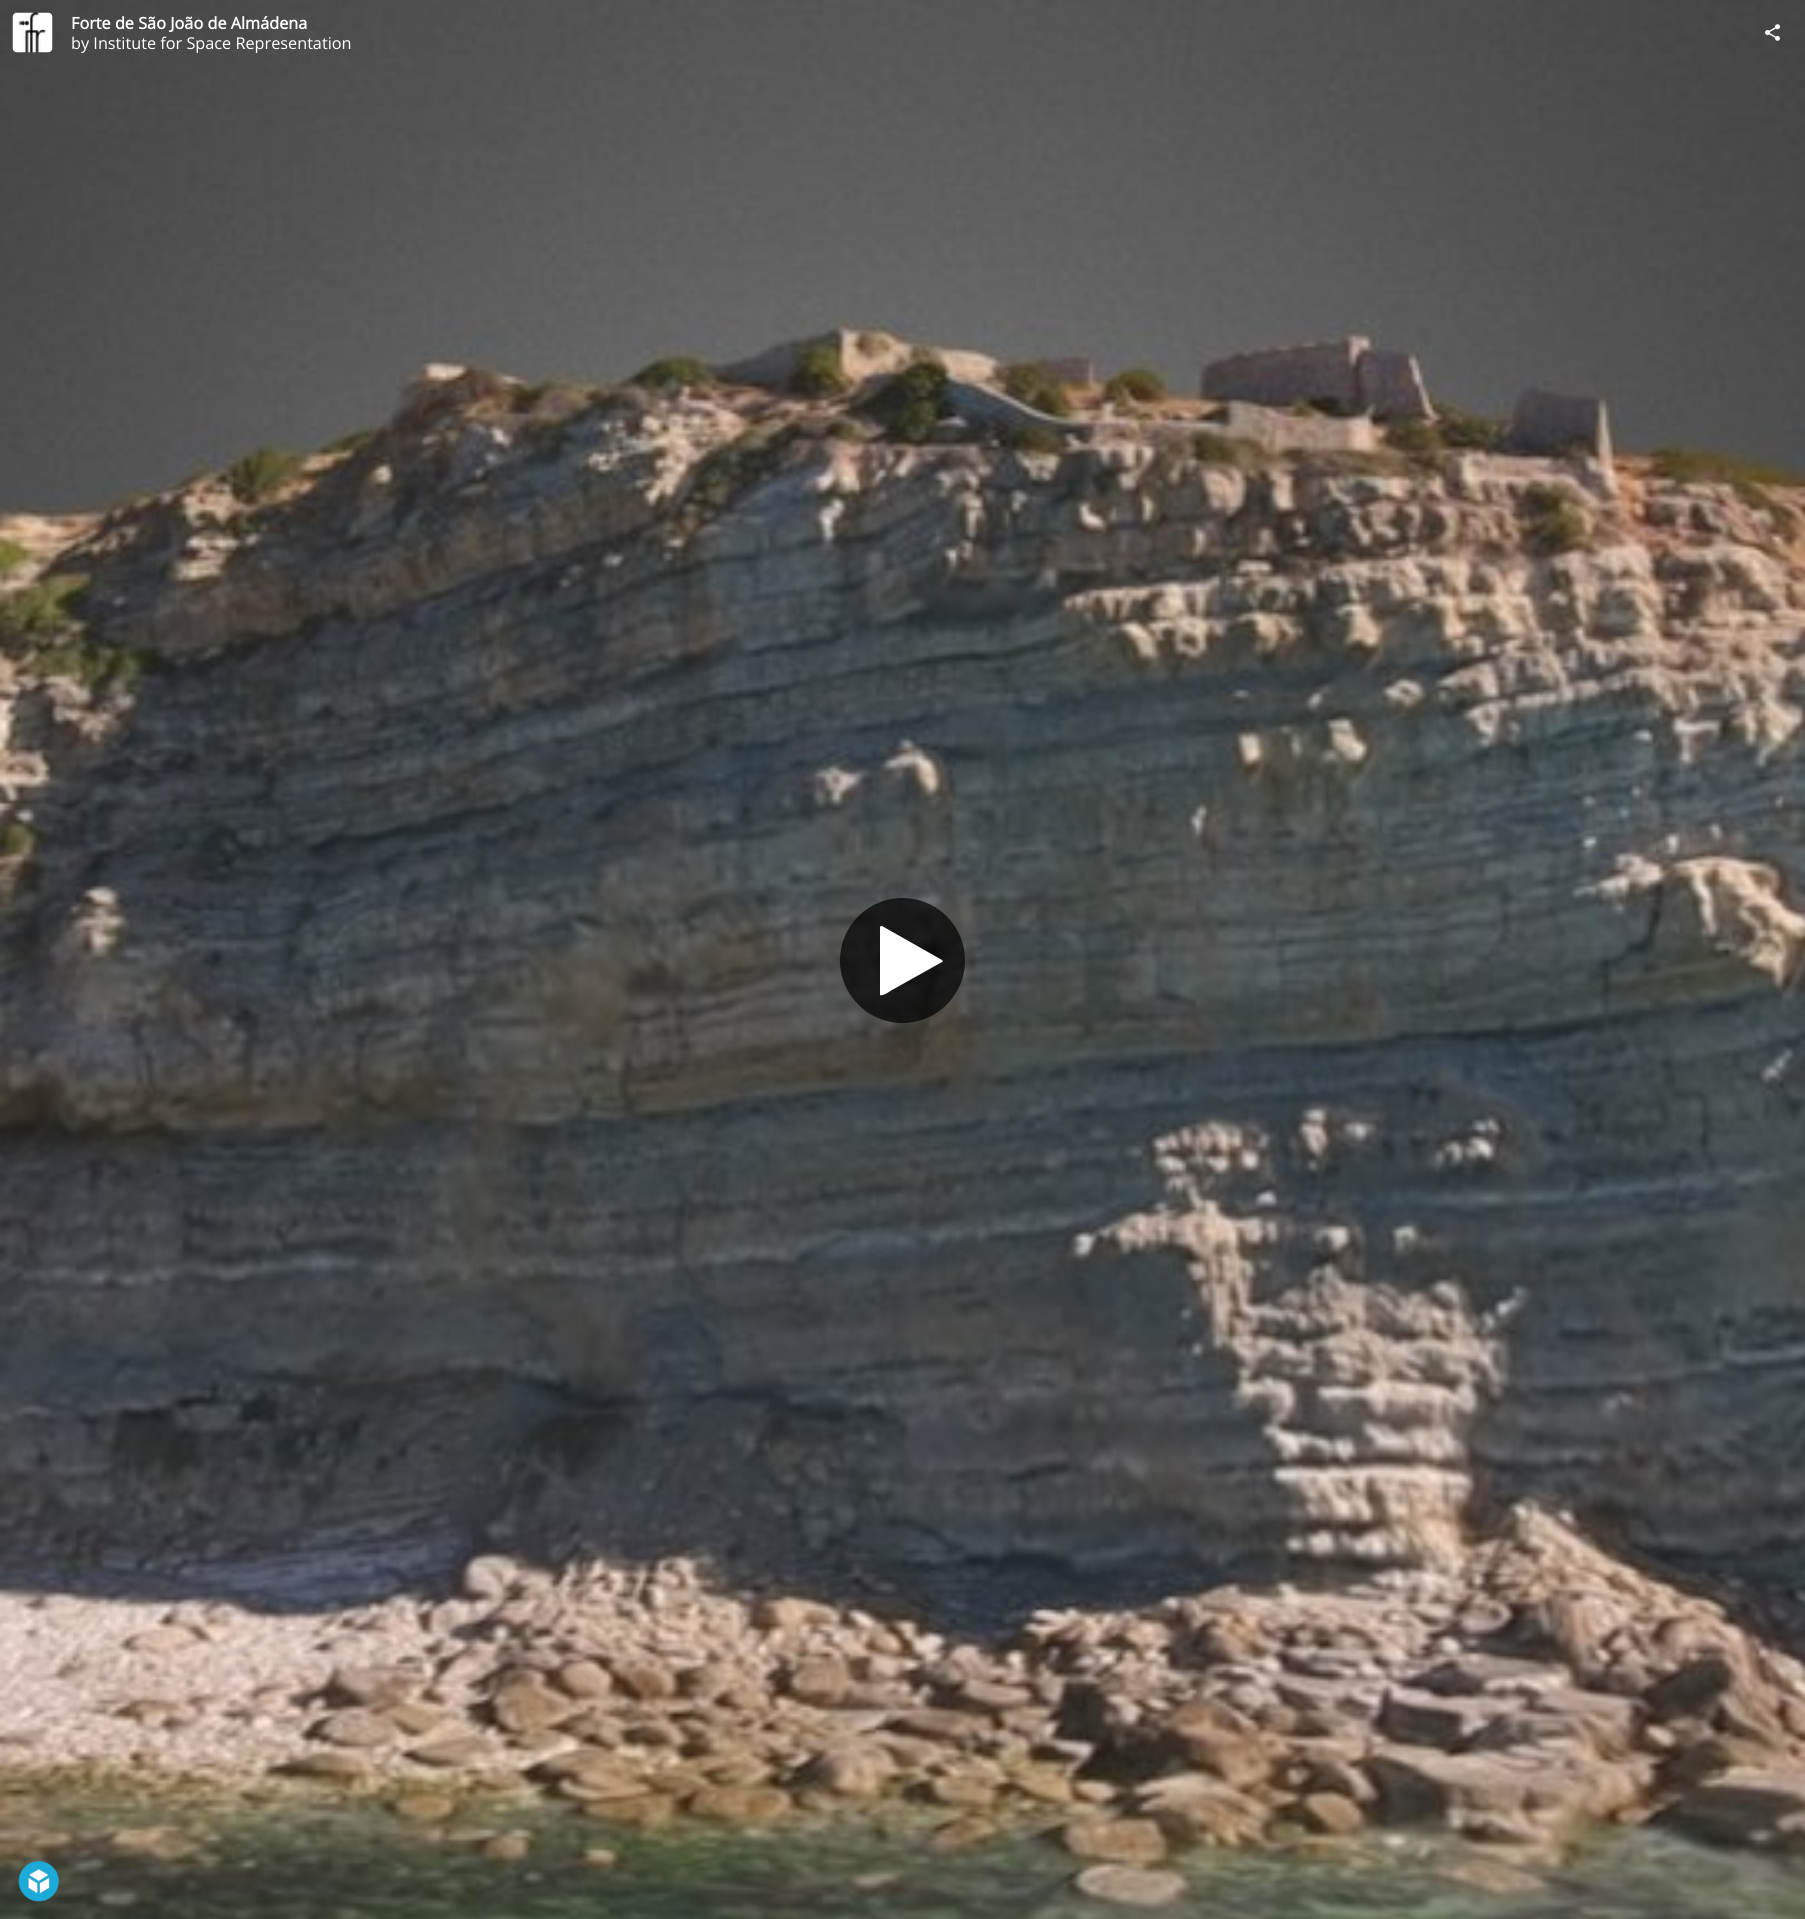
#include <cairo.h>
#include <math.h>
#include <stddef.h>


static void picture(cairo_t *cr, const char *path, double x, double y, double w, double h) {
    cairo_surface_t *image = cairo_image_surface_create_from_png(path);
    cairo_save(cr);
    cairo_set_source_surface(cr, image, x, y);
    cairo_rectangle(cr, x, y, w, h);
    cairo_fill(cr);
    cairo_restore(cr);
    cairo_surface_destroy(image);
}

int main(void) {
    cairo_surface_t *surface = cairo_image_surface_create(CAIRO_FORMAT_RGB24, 1805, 1919);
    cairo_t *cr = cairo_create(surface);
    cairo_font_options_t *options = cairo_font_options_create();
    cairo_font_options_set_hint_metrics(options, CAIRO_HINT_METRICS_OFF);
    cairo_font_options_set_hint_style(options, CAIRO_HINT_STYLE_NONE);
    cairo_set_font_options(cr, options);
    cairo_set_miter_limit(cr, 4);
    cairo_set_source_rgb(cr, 1, 1, 1);
    cairo_paint(cr);
    picture(cr, "img1.png", 0, 0, 1805, 1919);
    cairo_set_source_rgba(cr, 0, 0, 0, 0.7);
    cairo_arc(cr, 902.5, 960.5, 62.5, 0, 2 * M_PI);
    cairo_fill(cr);
    cairo_set_source_rgb(cr, 1, 1, 1);
    cairo_new_path(cr);
    cairo_move_to(cr, 942, 962);
    cairo_line_to(cr, 892, 990);
    cairo_curve_to(cr, 892, 990, 882, 997, 880, 995);
    cairo_line_to(cr, 880, 927);
    cairo_curve_to(cr, 880, 926, 882, 926, 882, 926);
    cairo_line_to(cr, 942, 960);
    cairo_curve_to(cr, 943, 961, 943, 962, 942, 962);
    cairo_close_path(cr);
    cairo_fill(cr);
    picture(cr, "img2.png", 18, 1861, 41, 41);
    picture(cr, "img3.png", 12, 12, 41, 41);
    cairo_select_font_face(cr, "Open Sans", CAIRO_FONT_SLANT_NORMAL, CAIRO_FONT_WEIGHT_BOLD);
    cairo_set_font_size(cr, 16.25);
    cairo_move_to(cr, 71, 29);
    cairo_show_text(cr, "Forte de São João de Almádena");
    cairo_select_font_face(cr, "Open Sans", CAIRO_FONT_SLANT_NORMAL, CAIRO_FONT_WEIGHT_NORMAL);
    cairo_move_to(cr, 71, 49);
    cairo_show_text(cr, "by Institute for Space Representation");
    picture(cr, "img4.png", 1765, 24, 15, 17);
    cairo_surface_write_to_png(surface, "page.png");
    cairo_font_options_destroy(options);
    cairo_destroy(cr);
    cairo_surface_destroy(surface);
    return 0;
}
